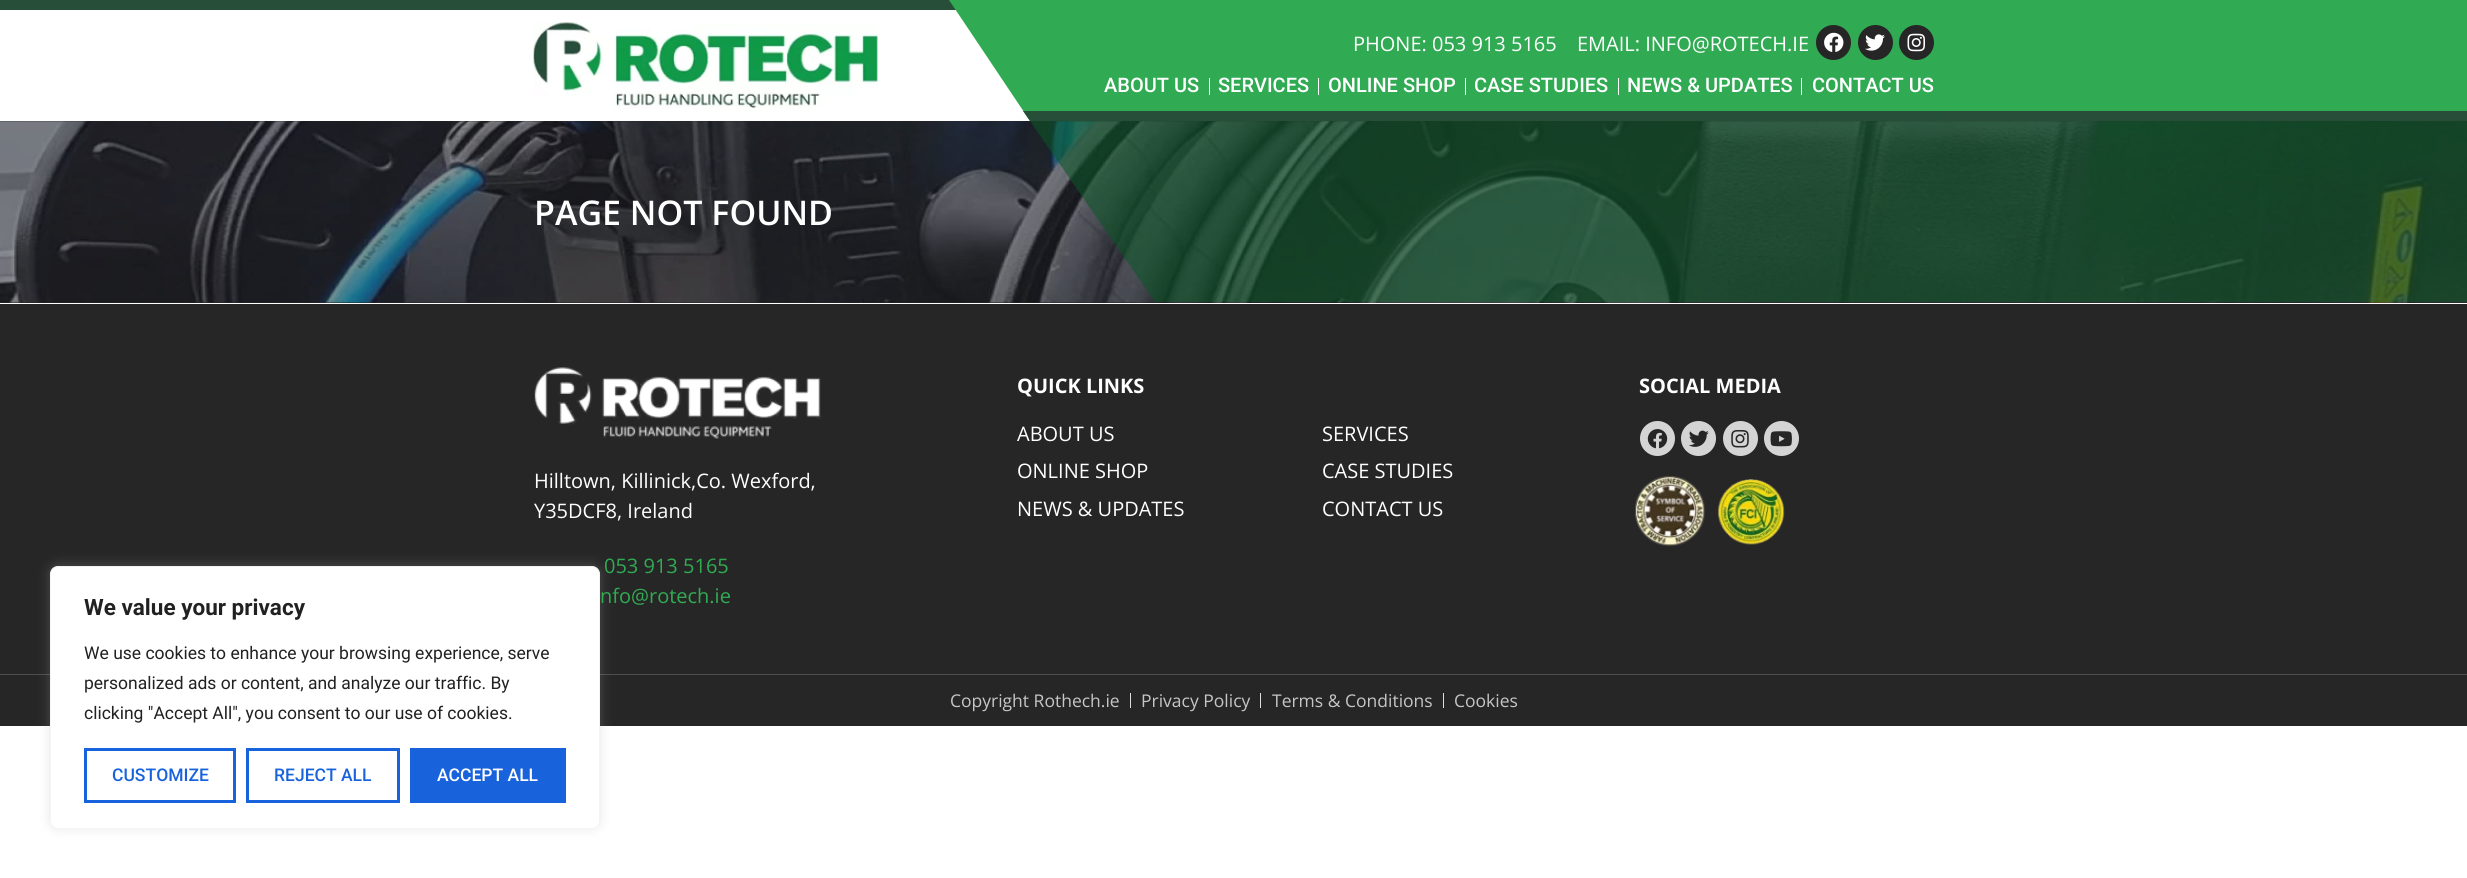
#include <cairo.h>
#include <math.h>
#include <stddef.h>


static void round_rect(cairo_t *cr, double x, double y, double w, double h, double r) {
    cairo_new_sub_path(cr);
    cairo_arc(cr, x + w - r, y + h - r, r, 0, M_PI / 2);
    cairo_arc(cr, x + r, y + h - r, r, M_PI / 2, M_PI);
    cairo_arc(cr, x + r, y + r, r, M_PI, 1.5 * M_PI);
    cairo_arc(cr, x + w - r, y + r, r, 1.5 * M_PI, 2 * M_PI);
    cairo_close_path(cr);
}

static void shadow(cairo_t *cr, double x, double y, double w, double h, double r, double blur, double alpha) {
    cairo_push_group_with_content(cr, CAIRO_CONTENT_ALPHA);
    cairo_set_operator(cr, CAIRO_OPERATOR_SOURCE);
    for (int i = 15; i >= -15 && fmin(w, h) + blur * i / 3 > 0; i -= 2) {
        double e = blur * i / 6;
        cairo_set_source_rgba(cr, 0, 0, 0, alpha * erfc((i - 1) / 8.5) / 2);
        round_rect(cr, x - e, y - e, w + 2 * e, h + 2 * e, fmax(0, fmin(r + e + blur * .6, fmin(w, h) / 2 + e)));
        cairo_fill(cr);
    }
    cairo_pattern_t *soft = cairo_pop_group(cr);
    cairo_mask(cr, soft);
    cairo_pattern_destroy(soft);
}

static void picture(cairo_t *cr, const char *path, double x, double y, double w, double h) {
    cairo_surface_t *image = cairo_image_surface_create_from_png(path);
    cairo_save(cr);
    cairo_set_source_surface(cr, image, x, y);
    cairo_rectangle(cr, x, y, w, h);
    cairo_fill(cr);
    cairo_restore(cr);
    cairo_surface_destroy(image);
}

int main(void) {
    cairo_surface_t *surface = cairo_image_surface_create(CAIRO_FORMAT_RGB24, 2467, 878);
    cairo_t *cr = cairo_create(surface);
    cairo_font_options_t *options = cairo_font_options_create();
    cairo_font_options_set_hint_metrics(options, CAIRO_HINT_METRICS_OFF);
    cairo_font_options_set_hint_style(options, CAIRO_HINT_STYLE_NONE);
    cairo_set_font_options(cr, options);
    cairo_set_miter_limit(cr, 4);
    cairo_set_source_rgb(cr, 1, 1, 1);
    cairo_paint(cr);
    cairo_set_source_rgb(cr, 0.153, 0.306, 0.224);
    cairo_rectangle(cr, 0, 0, 956, 10);
    cairo_fill(cr);
    picture(cr, "img1.png", 533, 22, 345, 87);
    cairo_set_source_rgb(cr, 0.192, 0.671, 0.325);
    cairo_new_path(cr);
    cairo_move_to(cr, 1574, -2);
    cairo_line_to(cr, 1574, 10);
    cairo_line_to(cr, 1946, 10);
    cairo_line_to(cr, 1946, 109);
    cairo_line_to(cr, 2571, 109);
    cairo_line_to(cr, 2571, -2);
    cairo_close_path(cr);
    cairo_fill(cr);
    cairo_new_path(cr);
    cairo_move_to(cr, 1261, -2);
    cairo_line_to(cr, 1261, 10);
    cairo_line_to(cr, 1946, 10);
    cairo_line_to(cr, 1946, 109);
    cairo_line_to(cr, 2259, 109);
    cairo_line_to(cr, 2259, -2);
    cairo_close_path(cr);
    cairo_fill(cr);
    cairo_rectangle(cr, 1946, 109, 521, 2);
    cairo_fill(cr);
    cairo_new_path(cr);
    cairo_move_to(cr, 949, 0);
    cairo_line_to(cr, 1946, 0);
    cairo_line_to(cr, 1946, 121);
    cairo_line_to(cr, 1030, 121);
    cairo_close_path(cr);
    cairo_fill(cr);
    cairo_set_source_rgb(cr, 0.153, 0.306, 0.224);
    cairo_new_path(cr);
    cairo_move_to(cr, 1030, 121);
    cairo_line_to(cr, 1023, 111);
    cairo_line_to(cr, 1946, 111);
    cairo_line_to(cr, 1946, 121);
    cairo_close_path(cr);
    cairo_fill(cr);
    cairo_select_font_face(cr, "Open Sans", CAIRO_FONT_SLANT_NORMAL, CAIRO_FONT_WEIGHT_NORMAL);
    cairo_set_font_size(cr, 20);
    cairo_set_source_rgb(cr, 1, 1, 1);
    cairo_move_to(cr, 1353, 51);
    cairo_show_text(cr, "PHONE: 053 913 5165");
    cairo_move_to(cr, 1577, 51);
    cairo_show_text(cr, "EMAIL: INFO@ROTECH.IE");
    cairo_set_source_rgb(cr, 0.149, 0.149, 0.149);
    cairo_new_path(cr);
    cairo_arc(cr, 1833.5, 42.5, 17.5, 0, 2 * M_PI);
    cairo_fill(cr);
    picture(cr, "img2.png", 1824, 32, 20, 20);
    cairo_arc(cr, 1875.5, 42.5, 17.5, 0, 2 * M_PI);
    cairo_fill(cr);
    picture(cr, "img3.png", 1865, 34, 20, 17);
    cairo_arc(cr, 1916.5, 42.5, 17.5, 0, 2 * M_PI);
    cairo_fill(cr);
    picture(cr, "img4.png", 1907, 33, 19, 19);
    cairo_select_font_face(cr, "Roboto Medium", CAIRO_FONT_SLANT_NORMAL, CAIRO_FONT_WEIGHT_NORMAL);
    cairo_set_source_rgb(cr, 1, 1, 1);
    cairo_move_to(cr, 1104, 92);
    cairo_show_text(cr, "ABOUT US");
    cairo_rectangle(cr, 1209, 78, 1, 17);
    cairo_fill(cr);
    cairo_move_to(cr, 1218, 92);
    cairo_show_text(cr, "SERVICES");
    cairo_rectangle(cr, 1318, 78, 1, 17);
    cairo_fill(cr);
    cairo_move_to(cr, 1328, 92);
    cairo_show_text(cr, "ONLINE SHOP");
    cairo_rectangle(cr, 1465, 78, 1, 17);
    cairo_fill(cr);
    cairo_move_to(cr, 1474, 92);
    cairo_show_text(cr, "CASE STUDIES");
    cairo_rectangle(cr, 1618, 78, 1, 17);
    cairo_fill(cr);
    cairo_move_to(cr, 1627, 92);
    cairo_show_text(cr, "NEWS & UPDATES");
    cairo_rectangle(cr, 1801, 78, 1, 17);
    cairo_fill(cr);
    cairo_move_to(cr, 1812, 92);
    cairo_show_text(cr, "CONTACT US");
    cairo_set_source_rgb(cr, 0.157, 0.306, 0.224);
    cairo_rectangle(cr, 1946, 111, 521, 10);
    cairo_fill(cr);
    cairo_set_source_rgb(cr, 0.149, 0.149, 0.149);
    cairo_rectangle(cr, 0, 121, 2467, 182);
    cairo_fill(cr);
    picture(cr, "img5.png", 0, 121, 2467, 182);
    cairo_select_font_face(cr, "Open Sans SemiBold", CAIRO_FONT_SLANT_NORMAL, CAIRO_FONT_WEIGHT_NORMAL);
    cairo_set_font_size(cr, 34);
    cairo_set_source_rgb(cr, 1, 1, 1);
    cairo_move_to(cr, 534, 225);
    cairo_show_text(cr, "PAGE NOT FOUND");
    cairo_set_source_rgba(cr, 0.043, 0.341, 0.157, 0.57);
    cairo_new_path(cr);
    cairo_move_to(cr, 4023, 302);
    cairo_line_to(cr, 1155, 302);
    cairo_line_to(cr, 1030, 121);
    cairo_line_to(cr, 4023, 121);
    cairo_close_path(cr);
    cairo_fill(cr);
    cairo_set_source_rgb(cr, 0.149, 0.149, 0.149);
    cairo_rectangle(cr, 0, 304, 2467, 422);
    cairo_fill(cr);
    cairo_set_source_rgb(cr, 0.302, 0.302, 0.302);
    cairo_rectangle(cr, 0, 674, 2467, 1);
    cairo_fill(cr);
    cairo_set_source_rgb(cr, 0.675, 0.671, 0.671);
    shadow(cr, 50, 565, 550, 263, 8, 6, 0.3);
    cairo_set_source_rgb(cr, 1, 1, 1);
    round_rect(cr, 50.5, 566.5, 549, 262, 7.5);
    cairo_fill_preserve(cr);
    cairo_set_source_rgb(cr, 0.957, 0.957, 0.957);
    cairo_set_line_width(cr, 1);
    cairo_stroke(cr);
    cairo_select_font_face(cr, "Roboto", CAIRO_FONT_SLANT_NORMAL, CAIRO_FONT_WEIGHT_BOLD);
    cairo_set_font_size(cr, 22.5);
    cairo_set_source_rgb(cr, 0.129, 0.129, 0.129);
    cairo_move_to(cr, 84, 615);
    cairo_show_text(cr, "We value your privacy");
    cairo_select_font_face(cr, "Roboto", CAIRO_FONT_SLANT_NORMAL, CAIRO_FONT_WEIGHT_NORMAL);
    cairo_set_font_size(cr, 17.5);
    cairo_move_to(cr, 84, 659);
    cairo_show_text(cr, "We use cookies to enhance your browsing experience, serve");
    cairo_move_to(cr, 84, 689);
    cairo_show_text(cr, "personalized ads or content, and analyze our traffic. By");
    cairo_move_to(cr, 84, 719);
    cairo_show_text(cr, "clicking \"Accept All\", you consent to our use of cookies.");
    cairo_rectangle(cr, 85.5, 749.5, 149, 52);
    cairo_set_source_rgb(cr, 0.094, 0.388, 0.863);
    cairo_set_line_width(cr, 3);
    cairo_stroke(cr);
    cairo_select_font_face(cr, "Roboto Medium", CAIRO_FONT_SLANT_NORMAL, CAIRO_FONT_WEIGHT_NORMAL);
    cairo_move_to(cr, 112, 781);
    cairo_show_text(cr, "CUSTOMIZE");
    cairo_rectangle(cr, 247.5, 749.5, 151, 52);
    cairo_stroke(cr);
    cairo_move_to(cr, 274, 781);
    cairo_show_text(cr, "REJECT ALL");
    cairo_rectangle(cr, 410, 748, 156, 55);
    cairo_fill(cr);
    cairo_set_source_rgb(cr, 1, 1, 1);
    cairo_move_to(cr, 437, 781);
    cairo_show_text(cr, "ACCEPT ALL");
    cairo_select_font_face(cr, "Open Sans", CAIRO_FONT_SLANT_NORMAL, CAIRO_FONT_WEIGHT_BOLD);
    cairo_set_font_size(cr, 20);
    cairo_move_to(cr, 1017, 393);
    cairo_show_text(cr, "QUICK LINKS");
    cairo_select_font_face(cr, "Open Sans", CAIRO_FONT_SLANT_NORMAL, CAIRO_FONT_WEIGHT_NORMAL);
    cairo_move_to(cr, 1017, 441);
    cairo_show_text(cr, "ABOUT US");
    cairo_move_to(cr, 1322, 441);
    cairo_show_text(cr, "SERVICES");
    cairo_move_to(cr, 1017, 478);
    cairo_show_text(cr, "ONLINE SHOP");
    cairo_move_to(cr, 1322, 478);
    cairo_show_text(cr, "CASE STUDIES");
    cairo_move_to(cr, 1017, 516);
    cairo_show_text(cr, "NEWS & UPDATES");
    cairo_move_to(cr, 1322, 516);
    cairo_show_text(cr, "CONTACT US");
    cairo_select_font_face(cr, "Open Sans", CAIRO_FONT_SLANT_NORMAL, CAIRO_FONT_WEIGHT_BOLD);
    cairo_move_to(cr, 1639, 393);
    cairo_show_text(cr, "SOCIAL MEDIA");
    cairo_set_source_rgb(cr, 0.831, 0.831, 0.831);
    cairo_new_path(cr);
    cairo_arc(cr, 1657.5, 438.5, 17.5, 0, 2 * M_PI);
    cairo_fill(cr);
    picture(cr, "img6.png", 1647, 429, 21, 20);
    cairo_arc(cr, 1698.5, 438.5, 17.5, 0, 2 * M_PI);
    cairo_fill(cr);
    picture(cr, "img7.png", 1689, 430, 20, 17);
    cairo_arc(cr, 1740.5, 438.5, 17.5, 0, 2 * M_PI);
    cairo_fill(cr);
    picture(cr, "img8.png", 1731, 430, 18, 18);
    cairo_arc(cr, 1781.5, 438.5, 17.5, 0, 2 * M_PI);
    cairo_fill(cr);
    picture(cr, "img9.png", 1770, 431, 22, 16);
    picture(cr, "img10.png", 1635, 476, 150, 71);
    picture(cr, "img11.png", 534, 367, 287, 72);
    cairo_select_font_face(cr, "Open Sans", CAIRO_FONT_SLANT_NORMAL, CAIRO_FONT_WEIGHT_NORMAL);
    cairo_set_source_rgb(cr, 1, 1, 1);
    cairo_move_to(cr, 534, 488);
    cairo_show_text(cr, "Hilltown, Killinick,Co. Wexford,");
    cairo_move_to(cr, 534, 518);
    cairo_show_text(cr, "Y35DCF8, Ireland");
    cairo_set_source_rgb(cr, 0.192, 0.671, 0.325);
    cairo_move_to(cr, 604, 573);
    cairo_show_text(cr, "053 913 5165");
    cairo_move_to(cr, 600, 603);
    cairo_show_text(cr, "nfo@rotech.ie");
    cairo_set_font_size(cr, 17.5);
    cairo_set_source_rgb(cr, 0.776, 0.776, 0.776);
    cairo_move_to(cr, 950, 707);
    cairo_show_text(cr, "Copyright Rothech.ie");
    cairo_set_source_rgb(cr, 0.867, 0.867, 0.867);
    cairo_rectangle(cr, 1130, 693, 1, 15);
    cairo_fill(cr);
    cairo_set_source_rgb(cr, 0.776, 0.776, 0.776);
    cairo_move_to(cr, 1141, 707);
    cairo_show_text(cr, "Privacy Policy");
    cairo_set_source_rgb(cr, 0.867, 0.867, 0.867);
    cairo_rectangle(cr, 1260, 693, 1, 15);
    cairo_fill(cr);
    cairo_set_source_rgb(cr, 0.776, 0.776, 0.776);
    cairo_move_to(cr, 1272, 707);
    cairo_show_text(cr, "Terms & Conditions");
    cairo_set_source_rgb(cr, 0.867, 0.867, 0.867);
    cairo_rectangle(cr, 1443, 693, 1, 15);
    cairo_fill(cr);
    cairo_set_source_rgb(cr, 0.776, 0.776, 0.776);
    cairo_move_to(cr, 1454, 707);
    cairo_show_text(cr, "Cookies");
    cairo_surface_write_to_png(surface, "page.png");
    cairo_font_options_destroy(options);
    cairo_destroy(cr);
    cairo_surface_destroy(surface);
    return 0;
}
